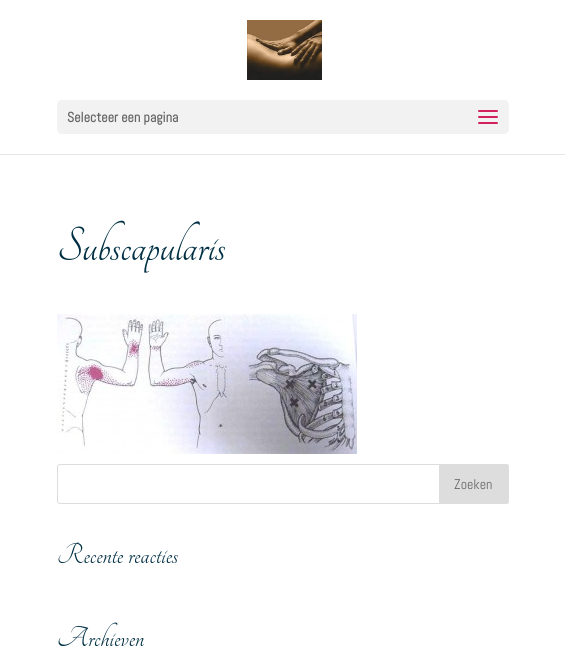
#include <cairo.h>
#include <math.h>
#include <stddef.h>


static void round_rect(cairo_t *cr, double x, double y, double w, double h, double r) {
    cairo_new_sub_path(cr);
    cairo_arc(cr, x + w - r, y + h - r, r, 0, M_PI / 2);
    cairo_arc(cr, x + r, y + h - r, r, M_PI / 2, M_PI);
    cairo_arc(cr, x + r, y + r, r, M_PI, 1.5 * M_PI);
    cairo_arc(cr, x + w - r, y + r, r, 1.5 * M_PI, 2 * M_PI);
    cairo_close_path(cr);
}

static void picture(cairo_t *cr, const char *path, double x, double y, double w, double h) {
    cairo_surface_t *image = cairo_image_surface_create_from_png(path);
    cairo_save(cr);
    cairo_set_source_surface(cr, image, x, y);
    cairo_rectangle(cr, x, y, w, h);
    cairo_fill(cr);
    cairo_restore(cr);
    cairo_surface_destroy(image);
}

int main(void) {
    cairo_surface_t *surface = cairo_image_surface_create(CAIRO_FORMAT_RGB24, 565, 647);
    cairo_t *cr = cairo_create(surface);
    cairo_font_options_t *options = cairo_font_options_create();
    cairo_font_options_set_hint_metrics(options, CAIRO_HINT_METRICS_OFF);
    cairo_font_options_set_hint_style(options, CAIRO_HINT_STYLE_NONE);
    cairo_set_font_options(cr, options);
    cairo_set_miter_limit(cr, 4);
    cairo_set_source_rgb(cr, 1, 1, 1);
    cairo_paint(cr);
    cairo_set_source_rgb(cr, 0.902, 0.902, 0.902);
    cairo_rectangle(cr, 0, 154, 565, 1);
    cairo_fill(cr);
    picture(cr, "img1.png", 247, 20, 75, 60);
    cairo_set_source_rgb(cr, 0.949, 0.949, 0.949);
    round_rect(cr, 57, 100, 452, 34, 5);
    cairo_fill(cr);
    cairo_select_font_face(cr, "Abel", CAIRO_FONT_SLANT_NORMAL, CAIRO_FONT_WEIGHT_BOLD);
    cairo_set_font_size(cr, 14);
    cairo_set_source_rgb(cr, 0.4, 0.4, 0.4);
    cairo_move_to(cr, 67, 122);
    cairo_show_text(cr, "Selecteer een pagina");
    picture(cr, "img2.png", 478, 110, 20, 14);
    cairo_select_font_face(cr, "Tangerine", CAIRO_FONT_SLANT_NORMAL, CAIRO_FONT_WEIGHT_NORMAL);
    cairo_set_font_size(cr, 52);
    cairo_set_source_rgb(cr, 0, 0.184, 0.263);
    cairo_move_to(cr, 57, 260);
    cairo_show_text(cr, "Subscapularis");
    picture(cr, "img3.png", 57, 314, 300, 140);
    round_rect(cr, 57.5, 464.5, 451, 39, 2.5);
    cairo_set_source_rgb(cr, 0.867, 0.867, 0.867);
    cairo_set_line_width(cr, 1);
    cairo_stroke(cr);
    cairo_new_path(cr);
    cairo_move_to(cr, 439.5, 464.5);
    cairo_line_to(cr, 506, 464.5);
    cairo_curve_to(cr, 507.5, 464.5, 508.5, 465.5, 508.5, 467);
    cairo_line_to(cr, 508.5, 501);
    cairo_curve_to(cr, 508.5, 502.5, 507.5, 503.5, 506, 503.5);
    cairo_line_to(cr, 439.5, 503.5);
    cairo_close_path(cr);
    cairo_fill_preserve(cr);
    cairo_stroke(cr);
    cairo_select_font_face(cr, "Abel", CAIRO_FONT_SLANT_NORMAL, CAIRO_FONT_WEIGHT_NORMAL);
    cairo_set_font_size(cr, 14);
    cairo_set_source_rgb(cr, 0.4, 0.4, 0.4);
    cairo_move_to(cr, 454, 489);
    cairo_show_text(cr, "Zoeken");
    cairo_select_font_face(cr, "Tangerine", CAIRO_FONT_SLANT_NORMAL, CAIRO_FONT_WEIGHT_NORMAL);
    cairo_set_font_size(cr, 31);
    cairo_set_source_rgb(cr, 0, 0.184, 0.263);
    cairo_move_to(cr, 57, 563);
    cairo_show_text(cr, "Recente reacties");
    cairo_move_to(cr, 57, 646);
    cairo_show_text(cr, "Archieven");
    cairo_surface_write_to_png(surface, "page.png");
    cairo_font_options_destroy(options);
    cairo_destroy(cr);
    cairo_surface_destroy(surface);
    return 0;
}
